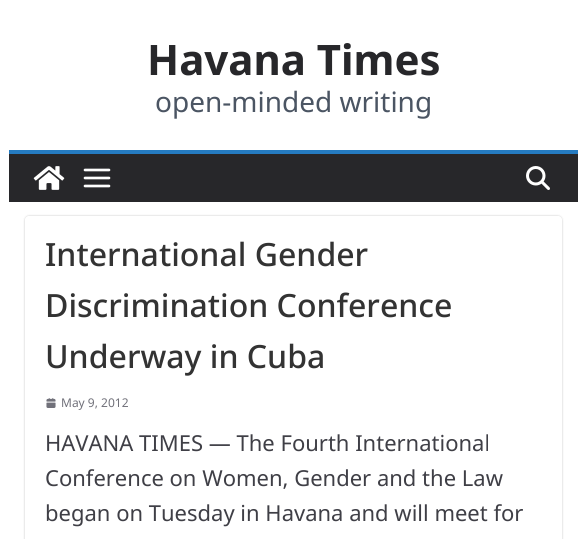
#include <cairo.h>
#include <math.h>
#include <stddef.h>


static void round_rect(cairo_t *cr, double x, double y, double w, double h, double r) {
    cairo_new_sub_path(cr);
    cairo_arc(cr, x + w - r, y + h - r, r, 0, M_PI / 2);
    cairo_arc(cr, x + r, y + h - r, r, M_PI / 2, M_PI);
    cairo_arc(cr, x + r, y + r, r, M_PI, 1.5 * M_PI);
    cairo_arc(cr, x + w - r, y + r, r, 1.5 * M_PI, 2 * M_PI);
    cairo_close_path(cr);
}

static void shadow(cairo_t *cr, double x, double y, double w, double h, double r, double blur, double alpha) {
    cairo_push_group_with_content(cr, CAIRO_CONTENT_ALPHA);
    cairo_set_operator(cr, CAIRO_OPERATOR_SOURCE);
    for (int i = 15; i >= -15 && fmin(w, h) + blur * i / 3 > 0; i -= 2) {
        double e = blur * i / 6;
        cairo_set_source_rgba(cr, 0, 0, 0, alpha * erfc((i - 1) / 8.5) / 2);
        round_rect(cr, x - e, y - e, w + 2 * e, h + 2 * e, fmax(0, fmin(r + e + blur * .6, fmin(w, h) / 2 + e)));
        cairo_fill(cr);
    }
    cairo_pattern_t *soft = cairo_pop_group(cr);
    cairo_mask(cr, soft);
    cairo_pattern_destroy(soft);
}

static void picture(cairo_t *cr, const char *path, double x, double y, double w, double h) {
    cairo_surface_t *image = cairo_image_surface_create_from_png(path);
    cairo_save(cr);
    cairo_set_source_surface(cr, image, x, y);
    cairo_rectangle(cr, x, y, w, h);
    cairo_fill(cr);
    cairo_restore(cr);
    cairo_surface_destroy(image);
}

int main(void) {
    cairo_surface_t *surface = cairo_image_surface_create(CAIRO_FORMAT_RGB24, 587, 539);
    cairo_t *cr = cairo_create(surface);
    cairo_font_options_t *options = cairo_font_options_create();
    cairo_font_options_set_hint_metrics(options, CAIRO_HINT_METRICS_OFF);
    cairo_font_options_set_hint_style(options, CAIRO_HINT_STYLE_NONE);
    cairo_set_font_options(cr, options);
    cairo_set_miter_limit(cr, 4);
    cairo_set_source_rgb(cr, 1, 1, 1);
    cairo_paint(cr);
    cairo_select_font_face(cr, "Noto Sans", CAIRO_FONT_SLANT_NORMAL, CAIRO_FONT_WEIGHT_BOLD);
    cairo_set_font_size(cr, 42);
    cairo_set_source_rgb(cr, 0.153, 0.153, 0.165);
    cairo_move_to(cr, 147, 75);
    cairo_show_text(cr, "Havana Times");
    cairo_select_font_face(cr, "Noto Sans", CAIRO_FONT_SLANT_NORMAL, CAIRO_FONT_WEIGHT_NORMAL);
    cairo_set_font_size(cr, 28);
    cairo_set_source_rgb(cr, 0.294, 0.333, 0.388);
    cairo_move_to(cr, 155, 112);
    cairo_show_text(cr, "open-minded writing");
    cairo_set_source_rgb(cr, 0.153, 0.153, 0.165);
    cairo_rectangle(cr, 9, 154, 569, 48);
    cairo_fill(cr);
    cairo_set_source_rgb(cr, 0.145, 0.482, 0.757);
    cairo_rectangle(cr, 9, 150, 569, 4);
    cairo_fill(cr);
    picture(cr, "img1.png", 33, 166, 32, 24);
    picture(cr, "img2.png", 83, 168, 28, 20);
    picture(cr, "img3.png", 526, 166, 24, 24);
    cairo_save(cr);
    cairo_set_fill_rule(cr, CAIRO_FILL_RULE_EVEN_ODD);
    cairo_new_path(cr);
    cairo_move_to(cr, 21, 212);
    cairo_line_to(cr, 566, 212);
    cairo_line_to(cr, 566, 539);
    cairo_line_to(cr, 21, 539);
    cairo_close_path(cr);
    cairo_move_to(cr, 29, 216);
    cairo_line_to(cr, 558, 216);
    cairo_curve_to(cr, 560, 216, 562, 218, 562, 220);
    cairo_line_to(cr, 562, 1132);
    cairo_curve_to(cr, 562, 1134, 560, 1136, 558, 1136);
    cairo_line_to(cr, 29, 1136);
    cairo_curve_to(cr, 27, 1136, 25, 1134, 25, 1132);
    cairo_line_to(cr, 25, 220);
    cairo_curve_to(cr, 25, 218, 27, 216, 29, 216);
    cairo_close_path(cr);
    cairo_clip(cr);
    cairo_set_source_rgb(cr, 0, 0, 0);
    shadow(cr, 25, 216, 537, 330, 4, 1, 0.24);
    cairo_restore(cr);
    cairo_select_font_face(cr, "Noto Sans Medium", CAIRO_FONT_SLANT_NORMAL, CAIRO_FONT_WEIGHT_NORMAL);
    cairo_set_font_size(cr, 32);
    cairo_set_source_rgb(cr, 0.2, 0.2, 0.2);
    cairo_move_to(cr, 45, 266);
    cairo_show_text(cr, "International Gender");
    cairo_move_to(cr, 45, 317);
    cairo_show_text(cr, "Discrimination Conference");
    cairo_move_to(cr, 45, 368);
    cairo_show_text(cr, "Underway in Cuba");
    picture(cr, "img4.png", 46, 398, 10, 10);
    cairo_select_font_face(cr, "Noto Sans", CAIRO_FONT_SLANT_NORMAL, CAIRO_FONT_WEIGHT_NORMAL);
    cairo_set_font_size(cr, 12);
    cairo_set_source_rgb(cr, 0.443, 0.443, 0.478);
    cairo_move_to(cr, 61, 407);
    cairo_show_text(cr, "May 9, 2012");
    cairo_set_font_size(cr, 22);
    cairo_set_source_rgb(cr, 0.247, 0.247, 0.275);
    cairo_move_to(cr, 45, 451);
    cairo_show_text(cr, "HAVANA TIMES — The Fourth International");
    cairo_move_to(cr, 45, 486);
    cairo_show_text(cr, "Conference on Women, Gender and the Law");
    cairo_move_to(cr, 45, 521);
    cairo_show_text(cr, "began on Tuesday in Havana and will meet for");
    cairo_surface_write_to_png(surface, "page.png");
    cairo_font_options_destroy(options);
    cairo_destroy(cr);
    cairo_surface_destroy(surface);
    return 0;
}
